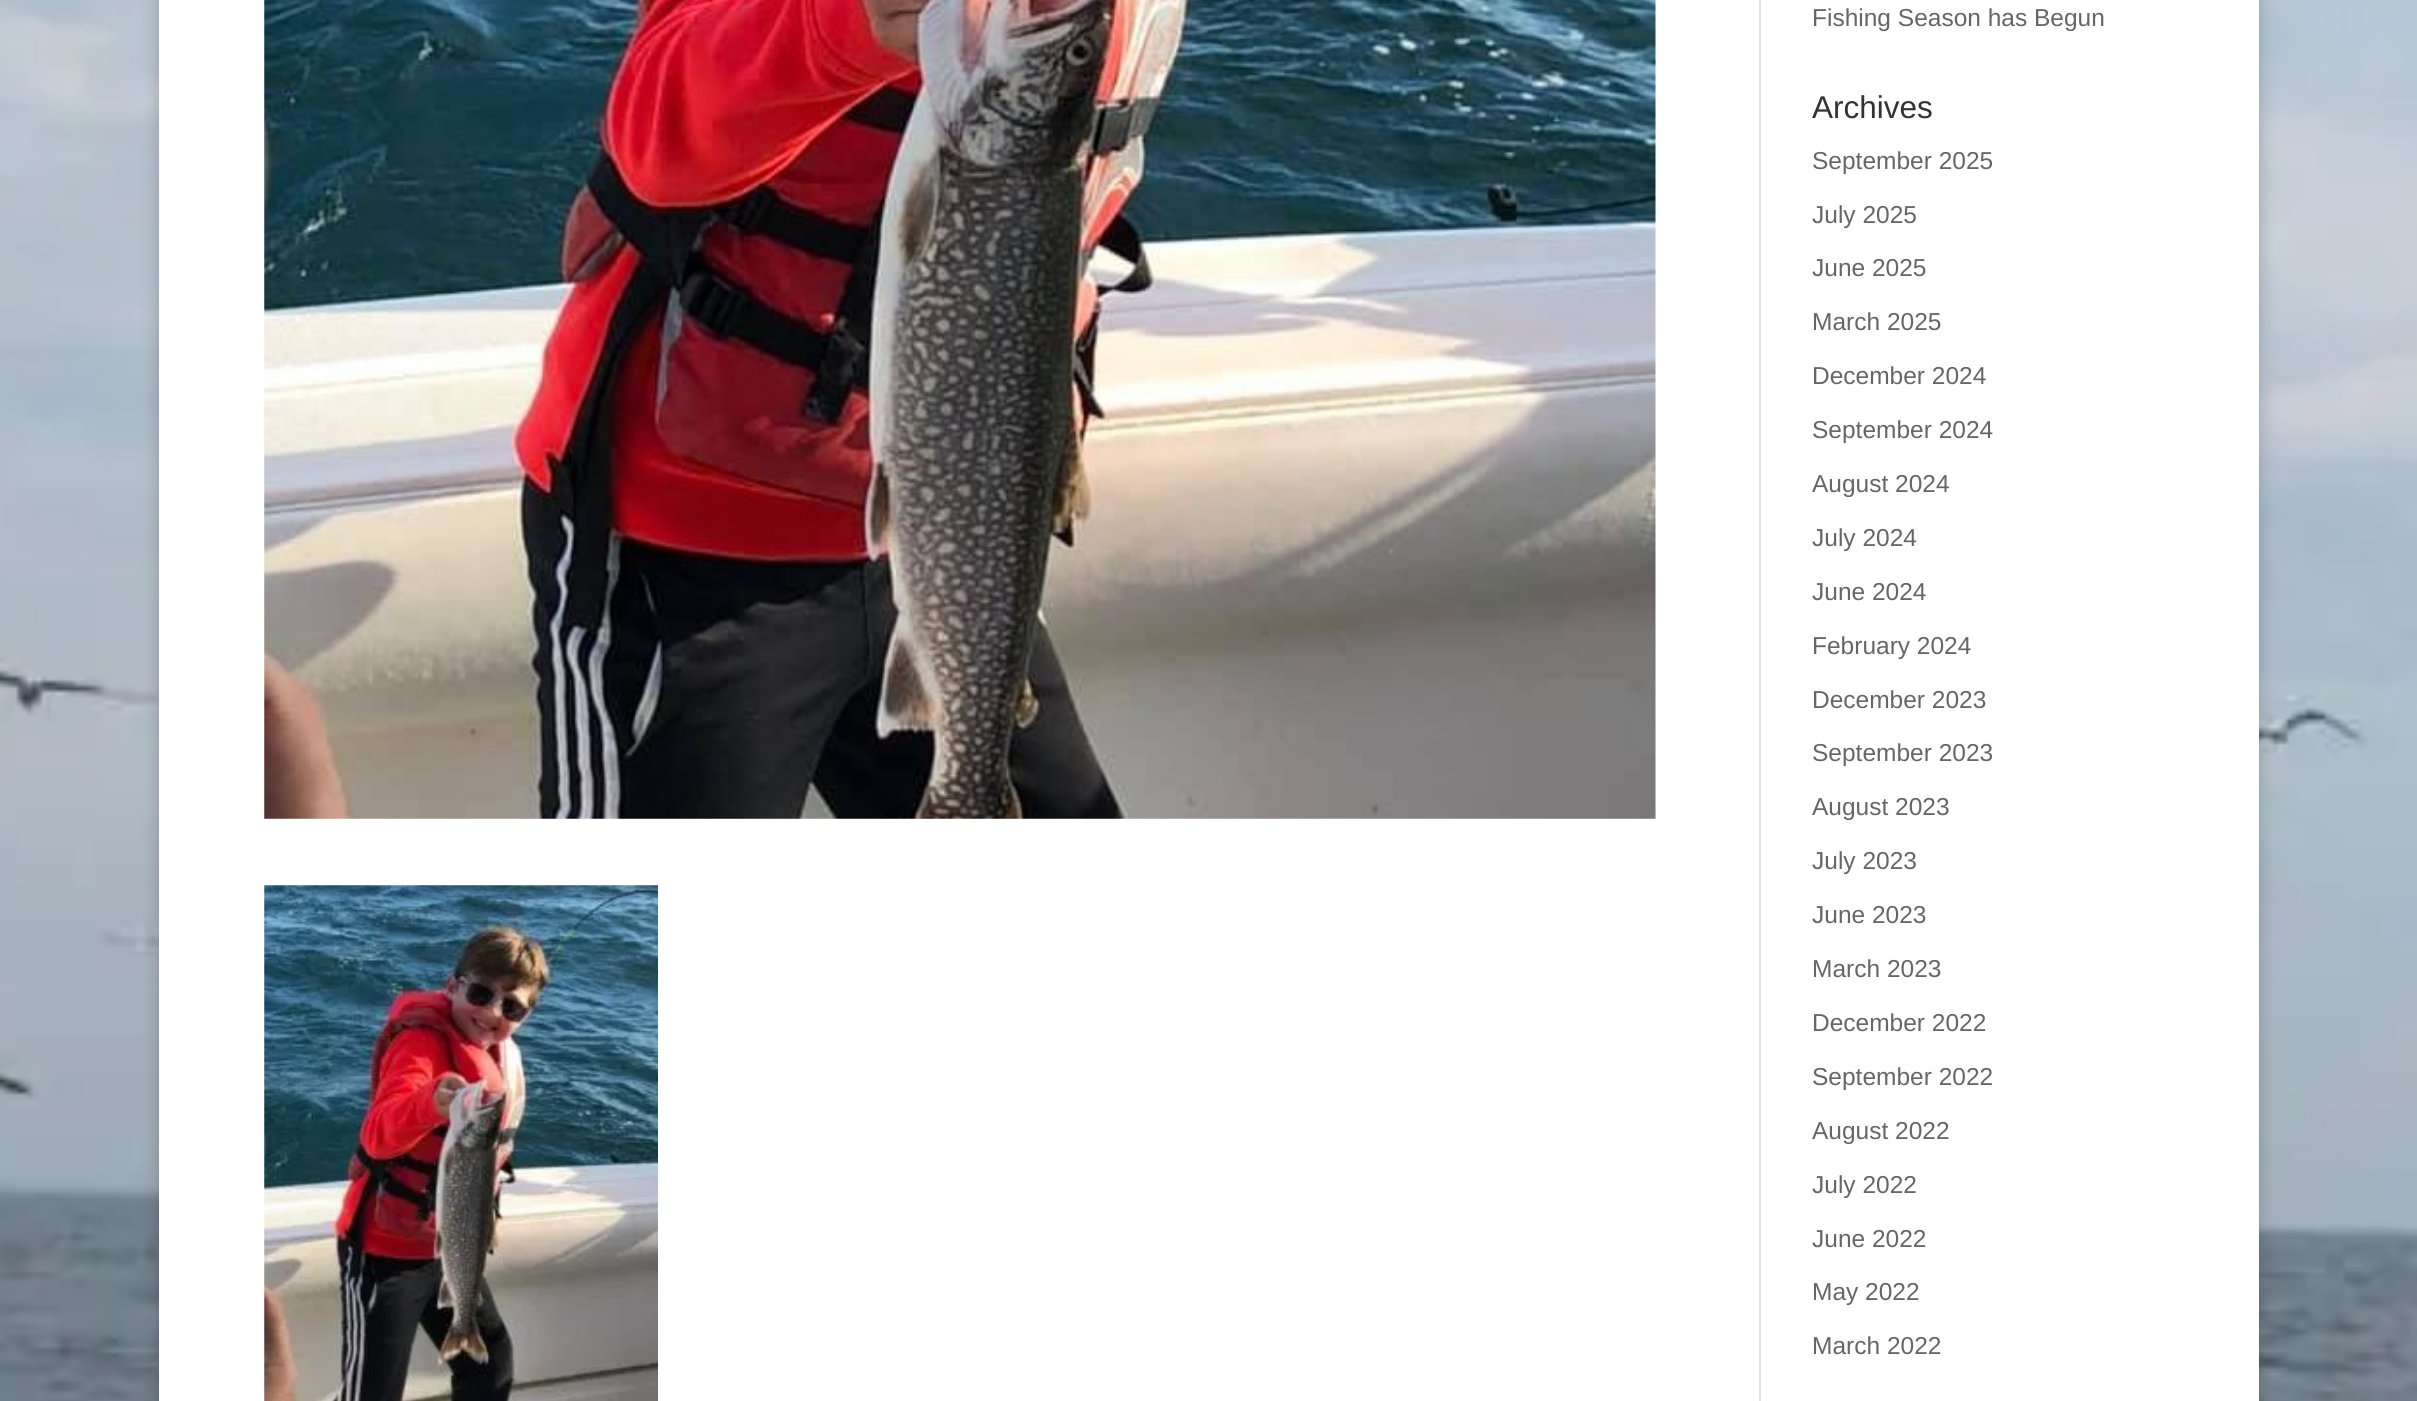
#include <cairo.h>
#include <math.h>
#include <stddef.h>


static void round_rect(cairo_t *cr, double x, double y, double w, double h, double r) {
    cairo_new_sub_path(cr);
    cairo_arc(cr, x + w - r, y + h - r, r, 0, M_PI / 2);
    cairo_arc(cr, x + r, y + h - r, r, M_PI / 2, M_PI);
    cairo_arc(cr, x + r, y + r, r, M_PI, 1.5 * M_PI);
    cairo_arc(cr, x + w - r, y + r, r, 1.5 * M_PI, 2 * M_PI);
    cairo_close_path(cr);
}

static void shadow(cairo_t *cr, double x, double y, double w, double h, double r, double blur, double alpha) {
    cairo_push_group_with_content(cr, CAIRO_CONTENT_ALPHA);
    cairo_set_operator(cr, CAIRO_OPERATOR_SOURCE);
    for (int i = 15; i >= -15 && fmin(w, h) + blur * i / 3 > 0; i -= 2) {
        double e = blur * i / 6;
        cairo_set_source_rgba(cr, 0, 0, 0, alpha * erfc((i - 1) / 8.5) / 2);
        round_rect(cr, x - e, y - e, w + 2 * e, h + 2 * e, fmax(0, fmin(r + e + blur * .6, fmin(w, h) / 2 + e)));
        cairo_fill(cr);
    }
    cairo_pattern_t *soft = cairo_pop_group(cr);
    cairo_mask(cr, soft);
    cairo_pattern_destroy(soft);
}

static void picture(cairo_t *cr, const char *path, double x, double y, double w, double h) {
    cairo_surface_t *image = cairo_image_surface_create_from_png(path);
    cairo_save(cr);
    cairo_set_source_surface(cr, image, x, y);
    cairo_rectangle(cr, x, y, w, h);
    cairo_fill(cr);
    cairo_restore(cr);
    cairo_surface_destroy(image);
}

int main(void) {
    cairo_surface_t *surface = cairo_image_surface_create(CAIRO_FORMAT_RGB24, 2417, 1401);
    cairo_t *cr = cairo_create(surface);
    cairo_font_options_t *options = cairo_font_options_create();
    cairo_font_options_set_hint_metrics(options, CAIRO_HINT_METRICS_OFF);
    cairo_font_options_set_hint_style(options, CAIRO_HINT_STYLE_NONE);
    cairo_set_font_options(cr, options);
    cairo_set_miter_limit(cr, 4);
    cairo_set_source_rgb(cr, 1, 1, 1);
    cairo_paint(cr);
    picture(cr, "img1.png", 0, 0, 2417, 1401);
    cairo_set_source_rgb(cr, 0, 0, 0);
    shadow(cr, 159, -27, 2100, 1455, 0, 9, 0.2);
    cairo_set_source_rgb(cr, 1, 1, 1);
    cairo_rectangle(cr, 159, 0, 2100, 1401);
    cairo_fill(cr);
    cairo_set_source_rgb(cr, 0.886, 0.886, 0.886);
    cairo_rectangle(cr, 1759, 0, 2, 1401);
    cairo_fill(cr);
    picture(cr, "img2.png", 264, 0, 1392, 819);
    picture(cr, "img3.png", 264, 885, 394, 516);
    cairo_select_font_face(cr, "Liberation Sans", CAIRO_FONT_SLANT_NORMAL, CAIRO_FONT_WEIGHT_NORMAL);
    cairo_set_font_size(cr, 24.5);
    cairo_set_source_rgb(cr, 0.4, 0.4, 0.4);
    cairo_move_to(cr, 1812, 26);
    cairo_show_text(cr, "Fishing Season has Begun");
    cairo_set_font_size(cr, 31.5);
    cairo_set_source_rgb(cr, 0.2, 0.2, 0.2);
    cairo_move_to(cr, 1812, 118);
    cairo_show_text(cr, "Archives");
    cairo_set_font_size(cr, 24.5);
    cairo_set_source_rgb(cr, 0.4, 0.4, 0.4);
    cairo_move_to(cr, 1812, 169);
    cairo_show_text(cr, "September 2025");
    cairo_move_to(cr, 1812, 223);
    cairo_show_text(cr, "July 2025");
    cairo_move_to(cr, 1812, 276);
    cairo_show_text(cr, "June 2025");
    cairo_move_to(cr, 1812, 330);
    cairo_show_text(cr, "March 2025");
    cairo_move_to(cr, 1812, 384);
    cairo_show_text(cr, "December 2024");
    cairo_move_to(cr, 1812, 438);
    cairo_show_text(cr, "September 2024");
    cairo_move_to(cr, 1812, 492);
    cairo_show_text(cr, "August 2024");
    cairo_move_to(cr, 1812, 546);
    cairo_show_text(cr, "July 2024");
    cairo_move_to(cr, 1812, 600);
    cairo_show_text(cr, "June 2024");
    cairo_move_to(cr, 1812, 654);
    cairo_show_text(cr, "February 2024");
    cairo_move_to(cr, 1812, 708);
    cairo_show_text(cr, "December 2023");
    cairo_move_to(cr, 1812, 761);
    cairo_show_text(cr, "September 2023");
    cairo_move_to(cr, 1812, 815);
    cairo_show_text(cr, "August 2023");
    cairo_move_to(cr, 1812, 869);
    cairo_show_text(cr, "July 2023");
    cairo_move_to(cr, 1812, 923);
    cairo_show_text(cr, "June 2023");
    cairo_move_to(cr, 1812, 977);
    cairo_show_text(cr, "March 2023");
    cairo_move_to(cr, 1812, 1031);
    cairo_show_text(cr, "December 2022");
    cairo_move_to(cr, 1812, 1085);
    cairo_show_text(cr, "September 2022");
    cairo_move_to(cr, 1812, 1139);
    cairo_show_text(cr, "August 2022");
    cairo_move_to(cr, 1812, 1193);
    cairo_show_text(cr, "July 2022");
    cairo_move_to(cr, 1812, 1247);
    cairo_show_text(cr, "June 2022");
    cairo_move_to(cr, 1812, 1300);
    cairo_show_text(cr, "May 2022");
    cairo_move_to(cr, 1812, 1354);
    cairo_show_text(cr, "March 2022");
    cairo_surface_write_to_png(surface, "page.png");
    cairo_font_options_destroy(options);
    cairo_destroy(cr);
    cairo_surface_destroy(surface);
    return 0;
}
